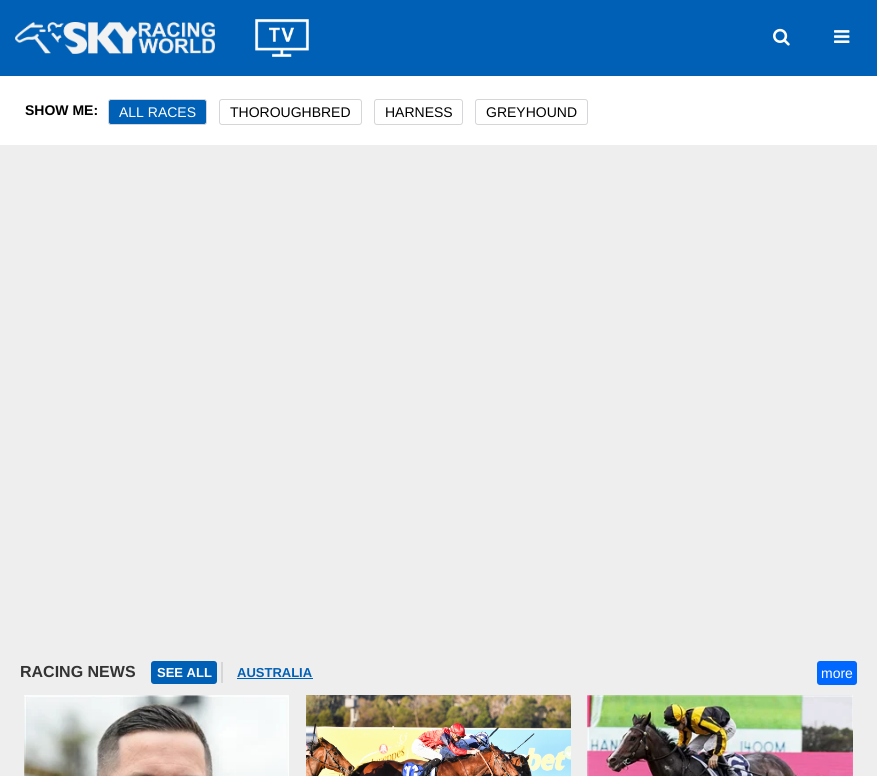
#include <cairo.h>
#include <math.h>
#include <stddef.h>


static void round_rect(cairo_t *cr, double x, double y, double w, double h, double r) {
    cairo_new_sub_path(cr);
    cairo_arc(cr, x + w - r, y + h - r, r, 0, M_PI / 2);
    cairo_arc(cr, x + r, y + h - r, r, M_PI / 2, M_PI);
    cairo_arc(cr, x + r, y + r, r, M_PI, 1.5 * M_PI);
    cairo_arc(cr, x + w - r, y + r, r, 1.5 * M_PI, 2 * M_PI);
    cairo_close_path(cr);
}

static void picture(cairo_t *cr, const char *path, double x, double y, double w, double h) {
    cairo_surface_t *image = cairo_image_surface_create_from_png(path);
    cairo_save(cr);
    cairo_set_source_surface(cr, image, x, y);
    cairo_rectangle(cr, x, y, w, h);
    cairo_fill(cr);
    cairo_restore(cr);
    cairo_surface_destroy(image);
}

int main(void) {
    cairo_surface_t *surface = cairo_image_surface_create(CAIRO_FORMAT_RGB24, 877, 776);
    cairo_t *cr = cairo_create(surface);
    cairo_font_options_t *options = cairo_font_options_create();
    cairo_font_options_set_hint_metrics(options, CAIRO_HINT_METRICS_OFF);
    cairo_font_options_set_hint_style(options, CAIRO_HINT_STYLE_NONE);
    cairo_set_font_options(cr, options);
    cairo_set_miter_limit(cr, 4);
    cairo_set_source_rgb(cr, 0.933, 0.933, 0.933);
    cairo_paint(cr);
    cairo_set_source_rgb(cr, 0, 0.376, 0.714);
    cairo_rectangle(cr, 0, 0, 877, 76);
    cairo_fill(cr);
    picture(cr, "img1.png", 15, 22, 200, 32);
    picture(cr, "img2.png", 255, 19, 54, 38);
    picture(cr, "img3.png", 773, 28, 17, 18);
    picture(cr, "img4.png", 834, 30, 16, 13);
    cairo_set_source_rgb(cr, 1, 1, 1);
    cairo_rectangle(cr, 0, 76, 877, 69);
    cairo_fill(cr);
    cairo_select_font_face(cr, "Liberation Sans", CAIRO_FONT_SLANT_NORMAL, CAIRO_FONT_WEIGHT_BOLD);
    cairo_set_font_size(cr, 14);
    cairo_set_source_rgb(cr, 0, 0, 0);
    cairo_move_to(cr, 25, 115);
    cairo_show_text(cr, "SHOW ME:");
    cairo_set_source_rgb(cr, 0, 0.376, 0.714);
    round_rect(cr, 108.5, 99.5, 98, 25, 2.5);
    cairo_fill_preserve(cr);
    cairo_set_source_rgb(cr, 0.831, 0.839, 0.847);
    cairo_set_line_width(cr, 1);
    cairo_stroke(cr);
    cairo_select_font_face(cr, "Liberation Sans", CAIRO_FONT_SLANT_NORMAL, CAIRO_FONT_WEIGHT_NORMAL);
    cairo_set_source_rgb(cr, 1, 1, 1);
    cairo_move_to(cr, 119, 117);
    cairo_show_text(cr, "ALL RACES");
    round_rect(cr, 219.5, 99.5, 142, 25, 2.5);
    cairo_set_source_rgb(cr, 0.831, 0.839, 0.847);
    cairo_stroke(cr);
    cairo_set_source_rgb(cr, 0, 0, 0);
    cairo_move_to(cr, 230, 117);
    cairo_show_text(cr, "THOROUGHBRED");
    round_rect(cr, 374.5, 99.5, 88, 25, 2.5);
    cairo_set_source_rgb(cr, 0.831, 0.839, 0.847);
    cairo_stroke(cr);
    cairo_set_source_rgb(cr, 0, 0, 0);
    cairo_move_to(cr, 385, 117);
    cairo_show_text(cr, "HARNESS");
    round_rect(cr, 475.5, 99.5, 112, 25, 2.5);
    cairo_set_source_rgb(cr, 0.831, 0.839, 0.847);
    cairo_stroke(cr);
    cairo_set_source_rgb(cr, 0, 0, 0);
    cairo_move_to(cr, 486, 117);
    cairo_show_text(cr, "GREYHOUND");
    cairo_select_font_face(cr, "Liberation Sans", CAIRO_FONT_SLANT_NORMAL, CAIRO_FONT_WEIGHT_BOLD);
    cairo_set_font_size(cr, 16);
    cairo_set_source_rgb(cr, 0.2, 0.2, 0.2);
    cairo_move_to(cr, 20, 677);
    cairo_show_text(cr, "RACING NEWS");
    cairo_set_source_rgb(cr, 0.831, 0.839, 0.847);
    cairo_rectangle(cr, 221, 662, 2, 21);
    cairo_fill(cr);
    cairo_set_source_rgb(cr, 0, 0.376, 0.714);
    round_rect(cr, 151, 661, 66, 23, 3);
    cairo_fill(cr);
    cairo_set_font_size(cr, 13);
    cairo_set_source_rgb(cr, 1, 1, 1);
    cairo_move_to(cr, 157, 677);
    cairo_show_text(cr, "SEE ALL");
    cairo_set_source_rgb(cr, 0, 0.376, 0.714);
    cairo_move_to(cr, 237, 677);
    cairo_show_text(cr, "AUSTRALIA");
    cairo_rectangle(cr, 237, 678, 76, 1);
    cairo_fill(cr);
    cairo_set_source_rgb(cr, 0, 0.404, 1);
    round_rect(cr, 817, 661, 40, 24, 3);
    cairo_fill(cr);
    cairo_select_font_face(cr, "Liberation Sans", CAIRO_FONT_SLANT_NORMAL, CAIRO_FONT_WEIGHT_NORMAL);
    cairo_set_font_size(cr, 14);
    cairo_set_source_rgb(cr, 1, 1, 1);
    cairo_move_to(cr, 821, 678);
    cairo_show_text(cr, "more");
    cairo_rectangle(cr, 24, 695, 265, 81);
    cairo_fill(cr);
    picture(cr, "img5.png", 24, 695, 265, 81);
    picture(cr, "img6.png", 306, 695, 265, 81);
    cairo_rectangle(cr, 587, 695, 266, 81);
    cairo_fill(cr);
    picture(cr, "img7.png", 587, 695, 266, 81);
    cairo_surface_write_to_png(surface, "page.png");
    cairo_font_options_destroy(options);
    cairo_destroy(cr);
    cairo_surface_destroy(surface);
    return 0;
}
